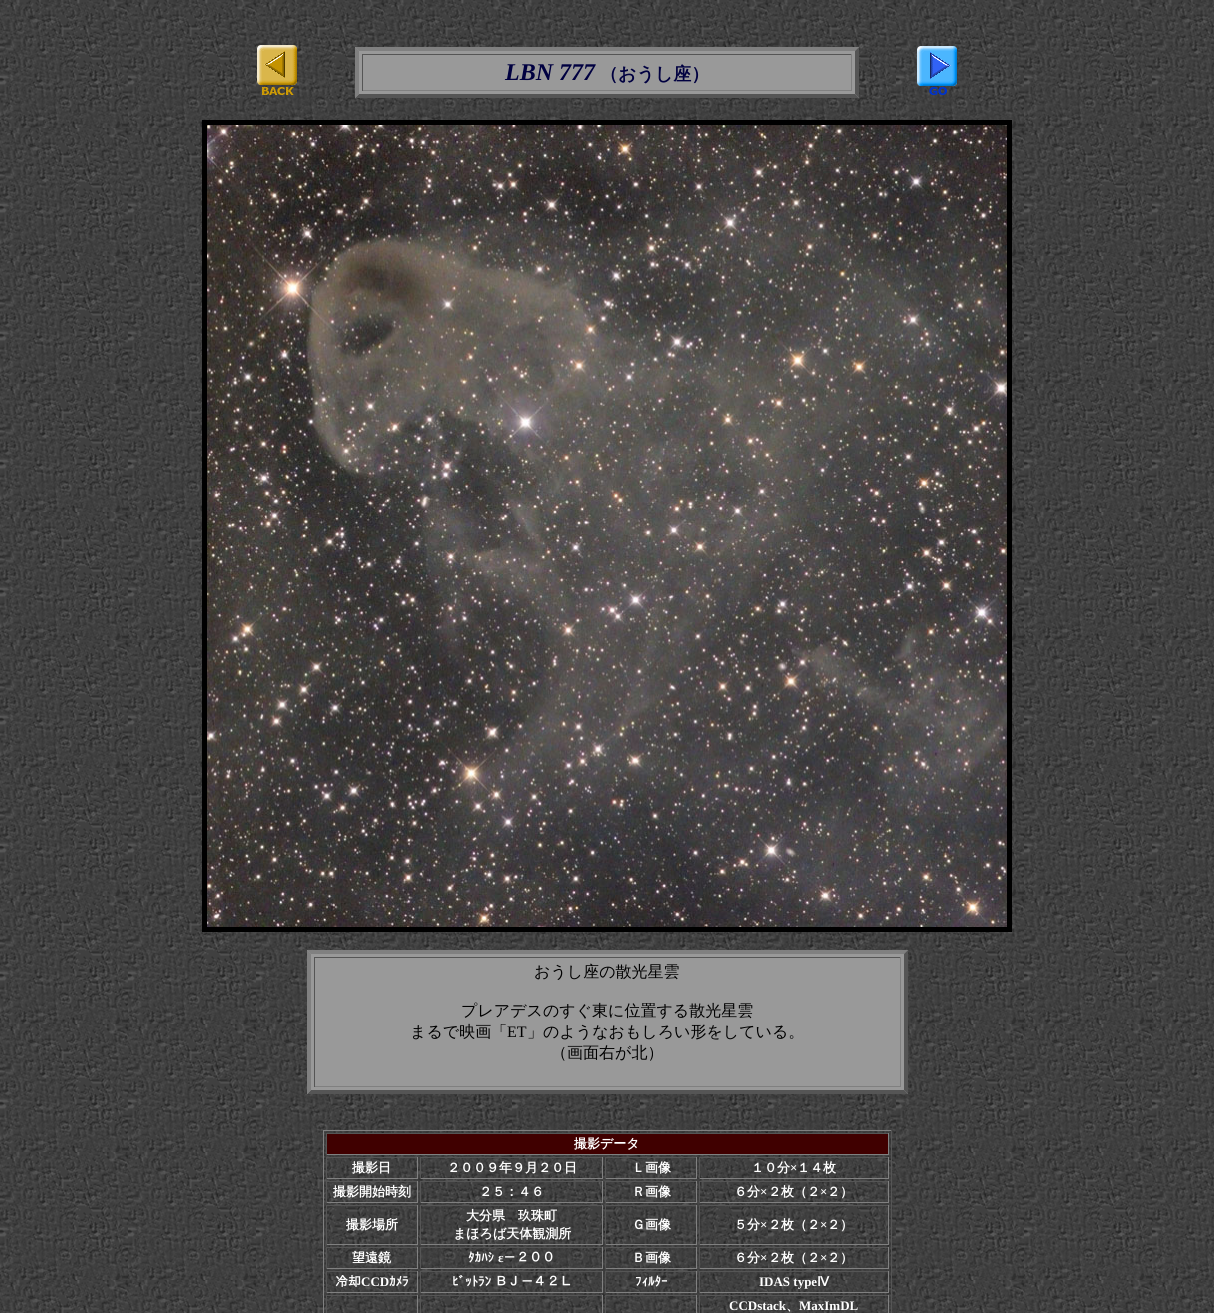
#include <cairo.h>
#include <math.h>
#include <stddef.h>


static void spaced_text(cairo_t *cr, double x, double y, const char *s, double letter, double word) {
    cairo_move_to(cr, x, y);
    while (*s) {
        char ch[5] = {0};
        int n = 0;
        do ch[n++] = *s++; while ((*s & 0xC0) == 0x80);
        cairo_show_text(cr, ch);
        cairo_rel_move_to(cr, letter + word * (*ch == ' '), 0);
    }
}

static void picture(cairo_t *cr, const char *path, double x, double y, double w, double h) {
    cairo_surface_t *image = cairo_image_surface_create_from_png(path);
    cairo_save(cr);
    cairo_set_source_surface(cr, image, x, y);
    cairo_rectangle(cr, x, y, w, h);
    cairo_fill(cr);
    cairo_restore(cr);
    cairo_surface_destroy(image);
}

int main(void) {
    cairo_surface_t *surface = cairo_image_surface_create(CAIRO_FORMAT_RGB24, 1214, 1313);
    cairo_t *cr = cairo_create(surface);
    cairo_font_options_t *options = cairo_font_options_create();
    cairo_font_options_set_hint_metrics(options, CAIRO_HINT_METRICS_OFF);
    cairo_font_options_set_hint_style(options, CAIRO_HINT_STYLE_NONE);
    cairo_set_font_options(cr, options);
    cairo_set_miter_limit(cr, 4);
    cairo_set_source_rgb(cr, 1, 1, 1);
    cairo_paint(cr);
    picture(cr, "img1.png", 0, 0, 1214, 1313);
    picture(cr, "img2.png", 257, 45, 40, 50);
    cairo_set_source_rgb(cr, 0.6, 0.6, 0.6);
    cairo_rectangle(cr, 355, 47, 504, 51);
    cairo_fill(cr);
    cairo_set_source_rgb(cr, 0.502, 0.502, 0.502);
    cairo_new_path(cr);
    cairo_move_to(cr, 355, 47);
    cairo_line_to(cr, 859, 47);
    cairo_line_to(cr, 855, 51);
    cairo_line_to(cr, 359, 51);
    cairo_close_path(cr);
    cairo_fill(cr);
    cairo_set_source_rgb(cr, 0.333, 0.333, 0.333);
    cairo_new_path(cr);
    cairo_move_to(cr, 859, 47);
    cairo_line_to(cr, 859, 98);
    cairo_line_to(cr, 855, 94);
    cairo_line_to(cr, 855, 51);
    cairo_close_path(cr);
    cairo_fill(cr);
    cairo_new_path(cr);
    cairo_move_to(cr, 859, 98);
    cairo_line_to(cr, 355, 98);
    cairo_line_to(cr, 359, 94);
    cairo_line_to(cr, 855, 94);
    cairo_close_path(cr);
    cairo_fill(cr);
    cairo_set_source_rgb(cr, 0.502, 0.502, 0.502);
    cairo_new_path(cr);
    cairo_move_to(cr, 355, 98);
    cairo_line_to(cr, 355, 47);
    cairo_line_to(cr, 359, 51);
    cairo_line_to(cr, 359, 94);
    cairo_close_path(cr);
    cairo_fill(cr);
    cairo_set_source_rgb(cr, 0.333, 0.333, 0.333);
    cairo_rectangle(cr, 362, 54, 490, 1);
    cairo_fill(cr);
    cairo_set_source_rgb(cr, 0.502, 0.502, 0.502);
    cairo_rectangle(cr, 851, 54, 1, 37);
    cairo_fill(cr);
    cairo_rectangle(cr, 362, 90, 490, 1);
    cairo_fill(cr);
    cairo_set_source_rgb(cr, 0.333, 0.333, 0.333);
    cairo_rectangle(cr, 362, 54, 1, 37);
    cairo_fill(cr);
    cairo_select_font_face(cr, "Liberation Serif", CAIRO_FONT_SLANT_ITALIC, CAIRO_FONT_WEIGHT_BOLD);
    cairo_set_font_size(cr, 24);
    cairo_set_source_rgb(cr, 0, 0, 0.251);
    cairo_move_to(cr, 505, 80);
    cairo_show_text(cr, "LBN 777");
    cairo_select_font_face(cr, "WenQuanYi Zen Hei", CAIRO_FONT_SLANT_NORMAL, CAIRO_FONT_WEIGHT_BOLD);
    cairo_set_font_size(cr, 18);
    cairo_move_to(cr, 600, 80);
    cairo_show_text(cr, "（おうし座）");
    picture(cr, "img3.png", 917, 46, 40, 49);
    cairo_rectangle(cr, 204.5, 122.5, 805, 807);
    cairo_set_source_rgb(cr, 0, 0, 0);
    cairo_set_line_width(cr, 5);
    cairo_stroke(cr);
    picture(cr, "img4.png", 207, 125, 800, 802);
    cairo_set_source_rgb(cr, 0.6, 0.6, 0.6);
    cairo_rectangle(cr, 307, 950, 601, 144);
    cairo_fill(cr);
    cairo_set_source_rgb(cr, 0.502, 0.502, 0.502);
    cairo_new_path(cr);
    cairo_move_to(cr, 307, 950);
    cairo_line_to(cr, 908, 950);
    cairo_line_to(cr, 904, 954);
    cairo_line_to(cr, 311, 954);
    cairo_close_path(cr);
    cairo_fill(cr);
    cairo_set_source_rgb(cr, 0.333, 0.333, 0.333);
    cairo_new_path(cr);
    cairo_move_to(cr, 908, 950);
    cairo_line_to(cr, 908, 1094);
    cairo_line_to(cr, 904, 1090);
    cairo_line_to(cr, 904, 954);
    cairo_close_path(cr);
    cairo_fill(cr);
    cairo_new_path(cr);
    cairo_move_to(cr, 908, 1094);
    cairo_line_to(cr, 307, 1094);
    cairo_line_to(cr, 311, 1090);
    cairo_line_to(cr, 904, 1090);
    cairo_close_path(cr);
    cairo_fill(cr);
    cairo_set_source_rgb(cr, 0.502, 0.502, 0.502);
    cairo_new_path(cr);
    cairo_move_to(cr, 307, 1094);
    cairo_line_to(cr, 307, 950);
    cairo_line_to(cr, 311, 954);
    cairo_line_to(cr, 311, 1090);
    cairo_close_path(cr);
    cairo_fill(cr);
    cairo_set_source_rgb(cr, 0.333, 0.333, 0.333);
    cairo_rectangle(cr, 314, 957, 587, 1);
    cairo_fill(cr);
    cairo_set_source_rgb(cr, 0.502, 0.502, 0.502);
    cairo_rectangle(cr, 900, 957, 1, 130);
    cairo_fill(cr);
    cairo_rectangle(cr, 314, 1086, 587, 1);
    cairo_fill(cr);
    cairo_set_source_rgb(cr, 0.333, 0.333, 0.333);
    cairo_rectangle(cr, 314, 957, 1, 130);
    cairo_fill(cr);
    cairo_select_font_face(cr, "WenQuanYi Zen Hei Medium", CAIRO_FONT_SLANT_NORMAL, CAIRO_FONT_WEIGHT_NORMAL);
    cairo_set_font_size(cr, 16);
    cairo_set_source_rgb(cr, 0, 0, 0);
    cairo_move_to(cr, 534, 977);
    cairo_show_text(cr, "おうし座の散光星雲");
    cairo_move_to(cr, 461, 1016);
    cairo_show_text(cr, "プレアデスのすぐ東に位置する散光星雲");
    cairo_move_to(cr, 410, 1037);
    cairo_show_text(cr, "まるで映画「");
    cairo_select_font_face(cr, "Liberation Serif", CAIRO_FONT_SLANT_NORMAL, CAIRO_FONT_WEIGHT_NORMAL);
    cairo_move_to(cr, 507, 1037);
    cairo_show_text(cr, "ET");
    cairo_select_font_face(cr, "WenQuanYi Zen Hei Medium", CAIRO_FONT_SLANT_NORMAL, CAIRO_FONT_WEIGHT_NORMAL);
    cairo_move_to(cr, 527, 1037);
    cairo_show_text(cr, "」のようなおもしろい形をしている。");
    cairo_move_to(cr, 551, 1058);
    cairo_show_text(cr, "（画面右が北）");
    cairo_set_source_rgb(cr, 0.502, 0.502, 0.502);
    cairo_rectangle(cr, 323, 1130, 569, 1);
    cairo_fill(cr);
    cairo_set_source_rgb(cr, 0.333, 0.333, 0.333);
    cairo_rectangle(cr, 891, 1130, 1, 183);
    cairo_fill(cr);
    cairo_set_source_rgb(cr, 0.502, 0.502, 0.502);
    cairo_rectangle(cr, 323, 1130, 1, 183);
    cairo_fill(cr);
    cairo_set_source_rgb(cr, 0.251, 0, 0);
    cairo_rectangle(cr, 327, 1134, 561, 20);
    cairo_fill(cr);
    cairo_set_source_rgb(cr, 0.333, 0.333, 0.333);
    cairo_rectangle(cr, 326, 1133, 563, 1);
    cairo_fill(cr);
    cairo_set_source_rgb(cr, 0.502, 0.502, 0.502);
    cairo_rectangle(cr, 888, 1133, 1, 22);
    cairo_fill(cr);
    cairo_rectangle(cr, 326, 1154, 563, 1);
    cairo_fill(cr);
    cairo_set_source_rgb(cr, 0.333, 0.333, 0.333);
    cairo_rectangle(cr, 326, 1133, 1, 22);
    cairo_fill(cr);
    cairo_select_font_face(cr, "WenQuanYi Zen Hei", CAIRO_FONT_SLANT_NORMAL, CAIRO_FONT_WEIGHT_BOLD);
    cairo_set_font_size(cr, 13);
    cairo_set_source_rgb(cr, 1, 1, 1);
    cairo_move_to(cr, 574, 1148);
    cairo_show_text(cr, "撮影データ");
    cairo_set_source_rgb(cr, 0.333, 0.333, 0.333);
    cairo_rectangle(cr, 326, 1157, 92, 1);
    cairo_fill(cr);
    cairo_set_source_rgb(cr, 0.502, 0.502, 0.502);
    cairo_rectangle(cr, 417, 1157, 1, 22);
    cairo_fill(cr);
    cairo_rectangle(cr, 326, 1178, 92, 1);
    cairo_fill(cr);
    cairo_set_source_rgb(cr, 0.333, 0.333, 0.333);
    cairo_rectangle(cr, 326, 1157, 1, 22);
    cairo_fill(cr);
    cairo_set_source_rgb(cr, 1, 1, 1);
    cairo_move_to(cr, 352, 1172);
    cairo_show_text(cr, "撮影日");
    cairo_set_source_rgb(cr, 0.333, 0.333, 0.333);
    cairo_rectangle(cr, 420, 1157, 183, 1);
    cairo_fill(cr);
    cairo_set_source_rgb(cr, 0.502, 0.502, 0.502);
    cairo_rectangle(cr, 602, 1157, 1, 22);
    cairo_fill(cr);
    cairo_rectangle(cr, 420, 1178, 183, 1);
    cairo_fill(cr);
    cairo_set_source_rgb(cr, 0.333, 0.333, 0.333);
    cairo_rectangle(cr, 420, 1157, 1, 22);
    cairo_fill(cr);
    cairo_set_source_rgb(cr, 1, 1, 1);
    cairo_move_to(cr, 447, 1172);
    cairo_show_text(cr, "２００９年９月２０日");
    cairo_set_source_rgb(cr, 0.333, 0.333, 0.333);
    cairo_rectangle(cr, 605, 1157, 92, 1);
    cairo_fill(cr);
    cairo_set_source_rgb(cr, 0.502, 0.502, 0.502);
    cairo_rectangle(cr, 696, 1157, 1, 22);
    cairo_fill(cr);
    cairo_rectangle(cr, 605, 1178, 92, 1);
    cairo_fill(cr);
    cairo_set_source_rgb(cr, 0.333, 0.333, 0.333);
    cairo_rectangle(cr, 605, 1157, 1, 22);
    cairo_fill(cr);
    cairo_set_source_rgb(cr, 1, 1, 1);
    cairo_move_to(cr, 632, 1172);
    cairo_show_text(cr, "Ｌ画像");
    cairo_set_source_rgb(cr, 0.333, 0.333, 0.333);
    cairo_rectangle(cr, 699, 1157, 190, 1);
    cairo_fill(cr);
    cairo_set_source_rgb(cr, 0.502, 0.502, 0.502);
    cairo_rectangle(cr, 888, 1157, 1, 22);
    cairo_fill(cr);
    cairo_rectangle(cr, 699, 1178, 190, 1);
    cairo_fill(cr);
    cairo_set_source_rgb(cr, 0.333, 0.333, 0.333);
    cairo_rectangle(cr, 699, 1157, 1, 22);
    cairo_fill(cr);
    cairo_set_source_rgb(cr, 1, 1, 1);
    cairo_move_to(cr, 751, 1172);
    cairo_show_text(cr, "１０分");
    cairo_select_font_face(cr, "Liberation Serif", CAIRO_FONT_SLANT_NORMAL, CAIRO_FONT_WEIGHT_BOLD);
    cairo_move_to(cr, 790, 1172);
    cairo_show_text(cr, "×");
    cairo_select_font_face(cr, "WenQuanYi Zen Hei", CAIRO_FONT_SLANT_NORMAL, CAIRO_FONT_WEIGHT_BOLD);
    cairo_move_to(cr, 797, 1172);
    cairo_show_text(cr, "１４枚");
    cairo_set_source_rgb(cr, 0.333, 0.333, 0.333);
    cairo_rectangle(cr, 326, 1181, 92, 1);
    cairo_fill(cr);
    cairo_set_source_rgb(cr, 0.502, 0.502, 0.502);
    cairo_rectangle(cr, 417, 1181, 1, 22);
    cairo_fill(cr);
    cairo_rectangle(cr, 326, 1202, 92, 1);
    cairo_fill(cr);
    cairo_set_source_rgb(cr, 0.333, 0.333, 0.333);
    cairo_rectangle(cr, 326, 1181, 1, 22);
    cairo_fill(cr);
    cairo_set_source_rgb(cr, 1, 1, 1);
    cairo_move_to(cr, 333, 1196);
    cairo_show_text(cr, "撮影開始時刻");
    cairo_set_source_rgb(cr, 0.333, 0.333, 0.333);
    cairo_rectangle(cr, 420, 1181, 183, 1);
    cairo_fill(cr);
    cairo_set_source_rgb(cr, 0.502, 0.502, 0.502);
    cairo_rectangle(cr, 602, 1181, 1, 22);
    cairo_fill(cr);
    cairo_rectangle(cr, 420, 1202, 183, 1);
    cairo_fill(cr);
    cairo_set_source_rgb(cr, 0.333, 0.333, 0.333);
    cairo_rectangle(cr, 420, 1181, 1, 22);
    cairo_fill(cr);
    cairo_set_source_rgb(cr, 1, 1, 1);
    cairo_move_to(cr, 479, 1196);
    cairo_show_text(cr, "２５：４６");
    cairo_set_source_rgb(cr, 0.333, 0.333, 0.333);
    cairo_rectangle(cr, 605, 1181, 92, 1);
    cairo_fill(cr);
    cairo_set_source_rgb(cr, 0.502, 0.502, 0.502);
    cairo_rectangle(cr, 696, 1181, 1, 22);
    cairo_fill(cr);
    cairo_rectangle(cr, 605, 1202, 92, 1);
    cairo_fill(cr);
    cairo_set_source_rgb(cr, 0.333, 0.333, 0.333);
    cairo_rectangle(cr, 605, 1181, 1, 22);
    cairo_fill(cr);
    cairo_set_source_rgb(cr, 1, 1, 1);
    cairo_move_to(cr, 632, 1196);
    cairo_show_text(cr, "Ｒ画像");
    cairo_set_source_rgb(cr, 0.333, 0.333, 0.333);
    cairo_rectangle(cr, 699, 1181, 190, 1);
    cairo_fill(cr);
    cairo_set_source_rgb(cr, 0.502, 0.502, 0.502);
    cairo_rectangle(cr, 888, 1181, 1, 22);
    cairo_fill(cr);
    cairo_rectangle(cr, 699, 1202, 190, 1);
    cairo_fill(cr);
    cairo_set_source_rgb(cr, 0.333, 0.333, 0.333);
    cairo_rectangle(cr, 699, 1181, 1, 22);
    cairo_fill(cr);
    cairo_set_source_rgb(cr, 1, 1, 1);
    cairo_move_to(cr, 734, 1196);
    cairo_show_text(cr, "６分");
    cairo_select_font_face(cr, "Liberation Serif", CAIRO_FONT_SLANT_NORMAL, CAIRO_FONT_WEIGHT_BOLD);
    cairo_move_to(cr, 760, 1196);
    cairo_show_text(cr, "×");
    cairo_select_font_face(cr, "WenQuanYi Zen Hei", CAIRO_FONT_SLANT_NORMAL, CAIRO_FONT_WEIGHT_BOLD);
    cairo_move_to(cr, 768, 1196);
    cairo_show_text(cr, "２枚（２");
    cairo_select_font_face(cr, "Liberation Serif", CAIRO_FONT_SLANT_NORMAL, CAIRO_FONT_WEIGHT_BOLD);
    cairo_move_to(cr, 820, 1196);
    cairo_show_text(cr, "×");
    cairo_select_font_face(cr, "WenQuanYi Zen Hei", CAIRO_FONT_SLANT_NORMAL, CAIRO_FONT_WEIGHT_BOLD);
    cairo_move_to(cr, 827, 1196);
    cairo_show_text(cr, "２）");
    cairo_set_source_rgb(cr, 0.333, 0.333, 0.333);
    cairo_rectangle(cr, 326, 1205, 92, 1);
    cairo_fill(cr);
    cairo_set_source_rgb(cr, 0.502, 0.502, 0.502);
    cairo_rectangle(cr, 417, 1205, 1, 40);
    cairo_fill(cr);
    cairo_rectangle(cr, 326, 1244, 92, 1);
    cairo_fill(cr);
    cairo_set_source_rgb(cr, 0.333, 0.333, 0.333);
    cairo_rectangle(cr, 326, 1205, 1, 40);
    cairo_fill(cr);
    cairo_set_source_rgb(cr, 1, 1, 1);
    cairo_move_to(cr, 346, 1229);
    cairo_show_text(cr, "撮影場所");
    cairo_set_source_rgb(cr, 0.333, 0.333, 0.333);
    cairo_rectangle(cr, 420, 1205, 183, 1);
    cairo_fill(cr);
    cairo_set_source_rgb(cr, 0.502, 0.502, 0.502);
    cairo_rectangle(cr, 602, 1205, 1, 40);
    cairo_fill(cr);
    cairo_rectangle(cr, 420, 1244, 183, 1);
    cairo_fill(cr);
    cairo_set_source_rgb(cr, 0.333, 0.333, 0.333);
    cairo_rectangle(cr, 420, 1205, 1, 40);
    cairo_fill(cr);
    cairo_set_source_rgb(cr, 1, 1, 1);
    cairo_move_to(cr, 466, 1220);
    cairo_show_text(cr, "大分県　玖珠町");
    cairo_move_to(cr, 453, 1238);
    cairo_show_text(cr, "まほろば天体観測所");
    cairo_set_source_rgb(cr, 0.333, 0.333, 0.333);
    cairo_rectangle(cr, 605, 1205, 92, 1);
    cairo_fill(cr);
    cairo_set_source_rgb(cr, 0.502, 0.502, 0.502);
    cairo_rectangle(cr, 696, 1205, 1, 40);
    cairo_fill(cr);
    cairo_rectangle(cr, 605, 1244, 92, 1);
    cairo_fill(cr);
    cairo_set_source_rgb(cr, 0.333, 0.333, 0.333);
    cairo_rectangle(cr, 605, 1205, 1, 40);
    cairo_fill(cr);
    cairo_set_source_rgb(cr, 1, 1, 1);
    cairo_move_to(cr, 632, 1229);
    cairo_show_text(cr, "Ｇ画像");
    cairo_set_source_rgb(cr, 0.333, 0.333, 0.333);
    cairo_rectangle(cr, 699, 1205, 190, 1);
    cairo_fill(cr);
    cairo_set_source_rgb(cr, 0.502, 0.502, 0.502);
    cairo_rectangle(cr, 888, 1205, 1, 40);
    cairo_fill(cr);
    cairo_rectangle(cr, 699, 1244, 190, 1);
    cairo_fill(cr);
    cairo_set_source_rgb(cr, 0.333, 0.333, 0.333);
    cairo_rectangle(cr, 699, 1205, 1, 40);
    cairo_fill(cr);
    cairo_set_source_rgb(cr, 1, 1, 1);
    cairo_move_to(cr, 734, 1229);
    cairo_show_text(cr, "５分");
    cairo_select_font_face(cr, "Liberation Serif", CAIRO_FONT_SLANT_NORMAL, CAIRO_FONT_WEIGHT_BOLD);
    cairo_move_to(cr, 760, 1229);
    cairo_show_text(cr, "×");
    cairo_select_font_face(cr, "WenQuanYi Zen Hei", CAIRO_FONT_SLANT_NORMAL, CAIRO_FONT_WEIGHT_BOLD);
    cairo_move_to(cr, 768, 1229);
    cairo_show_text(cr, "２枚（２");
    cairo_select_font_face(cr, "Liberation Serif", CAIRO_FONT_SLANT_NORMAL, CAIRO_FONT_WEIGHT_BOLD);
    cairo_move_to(cr, 820, 1229);
    cairo_show_text(cr, "×");
    cairo_select_font_face(cr, "WenQuanYi Zen Hei", CAIRO_FONT_SLANT_NORMAL, CAIRO_FONT_WEIGHT_BOLD);
    cairo_move_to(cr, 827, 1229);
    cairo_show_text(cr, "２）");
    cairo_set_source_rgb(cr, 0.333, 0.333, 0.333);
    cairo_rectangle(cr, 326, 1247, 92, 1);
    cairo_fill(cr);
    cairo_set_source_rgb(cr, 0.502, 0.502, 0.502);
    cairo_rectangle(cr, 417, 1247, 1, 22);
    cairo_fill(cr);
    cairo_rectangle(cr, 326, 1268, 92, 1);
    cairo_fill(cr);
    cairo_set_source_rgb(cr, 0.333, 0.333, 0.333);
    cairo_rectangle(cr, 326, 1247, 1, 22);
    cairo_fill(cr);
    cairo_set_source_rgb(cr, 1, 1, 1);
    cairo_move_to(cr, 352, 1262);
    cairo_show_text(cr, "望遠鏡");
    cairo_set_source_rgb(cr, 0.333, 0.333, 0.333);
    cairo_rectangle(cr, 420, 1247, 183, 1);
    cairo_fill(cr);
    cairo_set_source_rgb(cr, 0.502, 0.502, 0.502);
    cairo_rectangle(cr, 602, 1247, 1, 22);
    cairo_fill(cr);
    cairo_rectangle(cr, 420, 1268, 183, 1);
    cairo_fill(cr);
    cairo_set_source_rgb(cr, 0.333, 0.333, 0.333);
    cairo_rectangle(cr, 420, 1247, 1, 22);
    cairo_fill(cr);
    cairo_select_font_face(cr, "IPAGothic", CAIRO_FONT_SLANT_NORMAL, CAIRO_FONT_WEIGHT_BOLD);
    cairo_set_source_rgb(cr, 1, 1, 1);
    cairo_move_to(cr, 468, 1262);
    cairo_show_text(cr, "ﾀｶﾊｼ");
    cairo_select_font_face(cr, "Liberation Serif", CAIRO_FONT_SLANT_NORMAL, CAIRO_FONT_WEIGHT_BOLD);
    cairo_move_to(cr, 498, 1262);
    cairo_show_text(cr, "ε");
    cairo_select_font_face(cr, "IPAGothic", CAIRO_FONT_SLANT_NORMAL, CAIRO_FONT_WEIGHT_BOLD);
    cairo_move_to(cr, 503, 1262);
    cairo_show_text(cr, "－２００");
    cairo_set_source_rgb(cr, 0.333, 0.333, 0.333);
    cairo_rectangle(cr, 605, 1247, 92, 1);
    cairo_fill(cr);
    cairo_set_source_rgb(cr, 0.502, 0.502, 0.502);
    cairo_rectangle(cr, 696, 1247, 1, 22);
    cairo_fill(cr);
    cairo_rectangle(cr, 605, 1268, 92, 1);
    cairo_fill(cr);
    cairo_set_source_rgb(cr, 0.333, 0.333, 0.333);
    cairo_rectangle(cr, 605, 1247, 1, 22);
    cairo_fill(cr);
    cairo_select_font_face(cr, "WenQuanYi Zen Hei", CAIRO_FONT_SLANT_NORMAL, CAIRO_FONT_WEIGHT_BOLD);
    cairo_set_source_rgb(cr, 1, 1, 1);
    cairo_move_to(cr, 632, 1262);
    cairo_show_text(cr, "Ｂ画像");
    cairo_set_source_rgb(cr, 0.333, 0.333, 0.333);
    cairo_rectangle(cr, 699, 1247, 190, 1);
    cairo_fill(cr);
    cairo_set_source_rgb(cr, 0.502, 0.502, 0.502);
    cairo_rectangle(cr, 888, 1247, 1, 22);
    cairo_fill(cr);
    cairo_rectangle(cr, 699, 1268, 190, 1);
    cairo_fill(cr);
    cairo_set_source_rgb(cr, 0.333, 0.333, 0.333);
    cairo_rectangle(cr, 699, 1247, 1, 22);
    cairo_fill(cr);
    cairo_set_source_rgb(cr, 1, 1, 1);
    cairo_move_to(cr, 734, 1262);
    cairo_show_text(cr, "６分");
    cairo_select_font_face(cr, "Liberation Serif", CAIRO_FONT_SLANT_NORMAL, CAIRO_FONT_WEIGHT_BOLD);
    cairo_move_to(cr, 760, 1262);
    cairo_show_text(cr, "×");
    cairo_select_font_face(cr, "WenQuanYi Zen Hei", CAIRO_FONT_SLANT_NORMAL, CAIRO_FONT_WEIGHT_BOLD);
    cairo_move_to(cr, 768, 1262);
    cairo_show_text(cr, "２枚（２");
    cairo_select_font_face(cr, "Liberation Serif", CAIRO_FONT_SLANT_NORMAL, CAIRO_FONT_WEIGHT_BOLD);
    cairo_move_to(cr, 820, 1262);
    cairo_show_text(cr, "×");
    cairo_select_font_face(cr, "WenQuanYi Zen Hei", CAIRO_FONT_SLANT_NORMAL, CAIRO_FONT_WEIGHT_BOLD);
    cairo_move_to(cr, 827, 1262);
    cairo_show_text(cr, "２）");
    cairo_set_source_rgb(cr, 0.333, 0.333, 0.333);
    cairo_rectangle(cr, 326, 1271, 92, 1);
    cairo_fill(cr);
    cairo_set_source_rgb(cr, 0.502, 0.502, 0.502);
    cairo_rectangle(cr, 417, 1271, 1, 22);
    cairo_fill(cr);
    cairo_rectangle(cr, 326, 1292, 92, 1);
    cairo_fill(cr);
    cairo_set_source_rgb(cr, 0.333, 0.333, 0.333);
    cairo_rectangle(cr, 326, 1271, 1, 22);
    cairo_fill(cr);
    cairo_select_font_face(cr, "IPAGothic", CAIRO_FONT_SLANT_NORMAL, CAIRO_FONT_WEIGHT_BOLD);
    cairo_set_source_rgb(cr, 1, 1, 1);
    cairo_move_to(cr, 335, 1286);
    cairo_show_text(cr, "冷却");
    cairo_select_font_face(cr, "Liberation Serif", CAIRO_FONT_SLANT_NORMAL, CAIRO_FONT_WEIGHT_BOLD);
    cairo_move_to(cr, 361, 1286);
    cairo_show_text(cr, "CCD");
    cairo_select_font_face(cr, "IPAGothic", CAIRO_FONT_SLANT_NORMAL, CAIRO_FONT_WEIGHT_BOLD);
    cairo_move_to(cr, 389, 1286);
    cairo_show_text(cr, "ｶﾒﾗ");
    cairo_set_source_rgb(cr, 0.333, 0.333, 0.333);
    cairo_rectangle(cr, 420, 1271, 183, 1);
    cairo_fill(cr);
    cairo_set_source_rgb(cr, 0.502, 0.502, 0.502);
    cairo_rectangle(cr, 602, 1271, 1, 22);
    cairo_fill(cr);
    cairo_rectangle(cr, 420, 1292, 183, 1);
    cairo_fill(cr);
    cairo_set_source_rgb(cr, 0.333, 0.333, 0.333);
    cairo_rectangle(cr, 420, 1271, 1, 22);
    cairo_fill(cr);
    cairo_set_source_rgb(cr, 1, 1, 1);
    spaced_text(cr, 452, 1286, "ﾋﾞｯﾄﾗﾝ ＢＪ－４２Ｌ", 0, -3);
    cairo_set_source_rgb(cr, 0.333, 0.333, 0.333);
    cairo_rectangle(cr, 605, 1271, 92, 1);
    cairo_fill(cr);
    cairo_set_source_rgb(cr, 0.502, 0.502, 0.502);
    cairo_rectangle(cr, 696, 1271, 1, 22);
    cairo_fill(cr);
    cairo_rectangle(cr, 605, 1292, 92, 1);
    cairo_fill(cr);
    cairo_set_source_rgb(cr, 0.333, 0.333, 0.333);
    cairo_rectangle(cr, 605, 1271, 1, 22);
    cairo_fill(cr);
    cairo_set_source_rgb(cr, 1, 1, 1);
    cairo_move_to(cr, 635, 1286);
    cairo_show_text(cr, "ﾌｨﾙﾀｰ");
    cairo_set_source_rgb(cr, 0.333, 0.333, 0.333);
    cairo_rectangle(cr, 699, 1271, 190, 1);
    cairo_fill(cr);
    cairo_set_source_rgb(cr, 0.502, 0.502, 0.502);
    cairo_rectangle(cr, 888, 1271, 1, 22);
    cairo_fill(cr);
    cairo_rectangle(cr, 699, 1292, 190, 1);
    cairo_fill(cr);
    cairo_set_source_rgb(cr, 0.333, 0.333, 0.333);
    cairo_rectangle(cr, 699, 1271, 1, 22);
    cairo_fill(cr);
    cairo_select_font_face(cr, "Liberation Serif", CAIRO_FONT_SLANT_NORMAL, CAIRO_FONT_WEIGHT_BOLD);
    cairo_set_source_rgb(cr, 1, 1, 1);
    cairo_move_to(cr, 759, 1286);
    cairo_show_text(cr, "IDAS type");
    cairo_select_font_face(cr, "DejaVu Sans", CAIRO_FONT_SLANT_NORMAL, CAIRO_FONT_WEIGHT_BOLD);
    cairo_move_to(cr, 817, 1286);
    cairo_show_text(cr, "Ⅳ");
    cairo_set_source_rgb(cr, 0.333, 0.333, 0.333);
    cairo_rectangle(cr, 326, 1295, 92, 1);
    cairo_fill(cr);
    cairo_set_source_rgb(cr, 0.502, 0.502, 0.502);
    cairo_rectangle(cr, 417, 1295, 1, 18);
    cairo_fill(cr);
    cairo_set_source_rgb(cr, 0.333, 0.333, 0.333);
    cairo_rectangle(cr, 326, 1295, 1, 18);
    cairo_fill(cr);
    cairo_rectangle(cr, 420, 1295, 183, 1);
    cairo_fill(cr);
    cairo_set_source_rgb(cr, 0.502, 0.502, 0.502);
    cairo_rectangle(cr, 602, 1295, 1, 18);
    cairo_fill(cr);
    cairo_set_source_rgb(cr, 0.333, 0.333, 0.333);
    cairo_rectangle(cr, 420, 1295, 1, 18);
    cairo_fill(cr);
    cairo_rectangle(cr, 605, 1295, 92, 1);
    cairo_fill(cr);
    cairo_set_source_rgb(cr, 0.502, 0.502, 0.502);
    cairo_rectangle(cr, 696, 1295, 1, 18);
    cairo_fill(cr);
    cairo_set_source_rgb(cr, 0.333, 0.333, 0.333);
    cairo_rectangle(cr, 605, 1295, 1, 18);
    cairo_fill(cr);
    cairo_rectangle(cr, 699, 1295, 190, 1);
    cairo_fill(cr);
    cairo_set_source_rgb(cr, 0.502, 0.502, 0.502);
    cairo_rectangle(cr, 888, 1295, 1, 18);
    cairo_fill(cr);
    cairo_set_source_rgb(cr, 0.333, 0.333, 0.333);
    cairo_rectangle(cr, 699, 1295, 1, 18);
    cairo_fill(cr);
    cairo_select_font_face(cr, "Liberation Serif", CAIRO_FONT_SLANT_NORMAL, CAIRO_FONT_WEIGHT_BOLD);
    cairo_set_source_rgb(cr, 1, 1, 1);
    cairo_move_to(cr, 729, 1310);
    cairo_show_text(cr, "CCDstack");
    cairo_select_font_face(cr, "WenQuanYi Zen Hei", CAIRO_FONT_SLANT_NORMAL, CAIRO_FONT_WEIGHT_BOLD);
    cairo_move_to(cr, 786, 1310);
    cairo_show_text(cr, "、");
    cairo_select_font_face(cr, "Liberation Serif", CAIRO_FONT_SLANT_NORMAL, CAIRO_FONT_WEIGHT_BOLD);
    cairo_move_to(cr, 799, 1310);
    cairo_show_text(cr, "MaxImDL");
    cairo_surface_write_to_png(surface, "page.png");
    cairo_font_options_destroy(options);
    cairo_destroy(cr);
    cairo_surface_destroy(surface);
    return 0;
}
